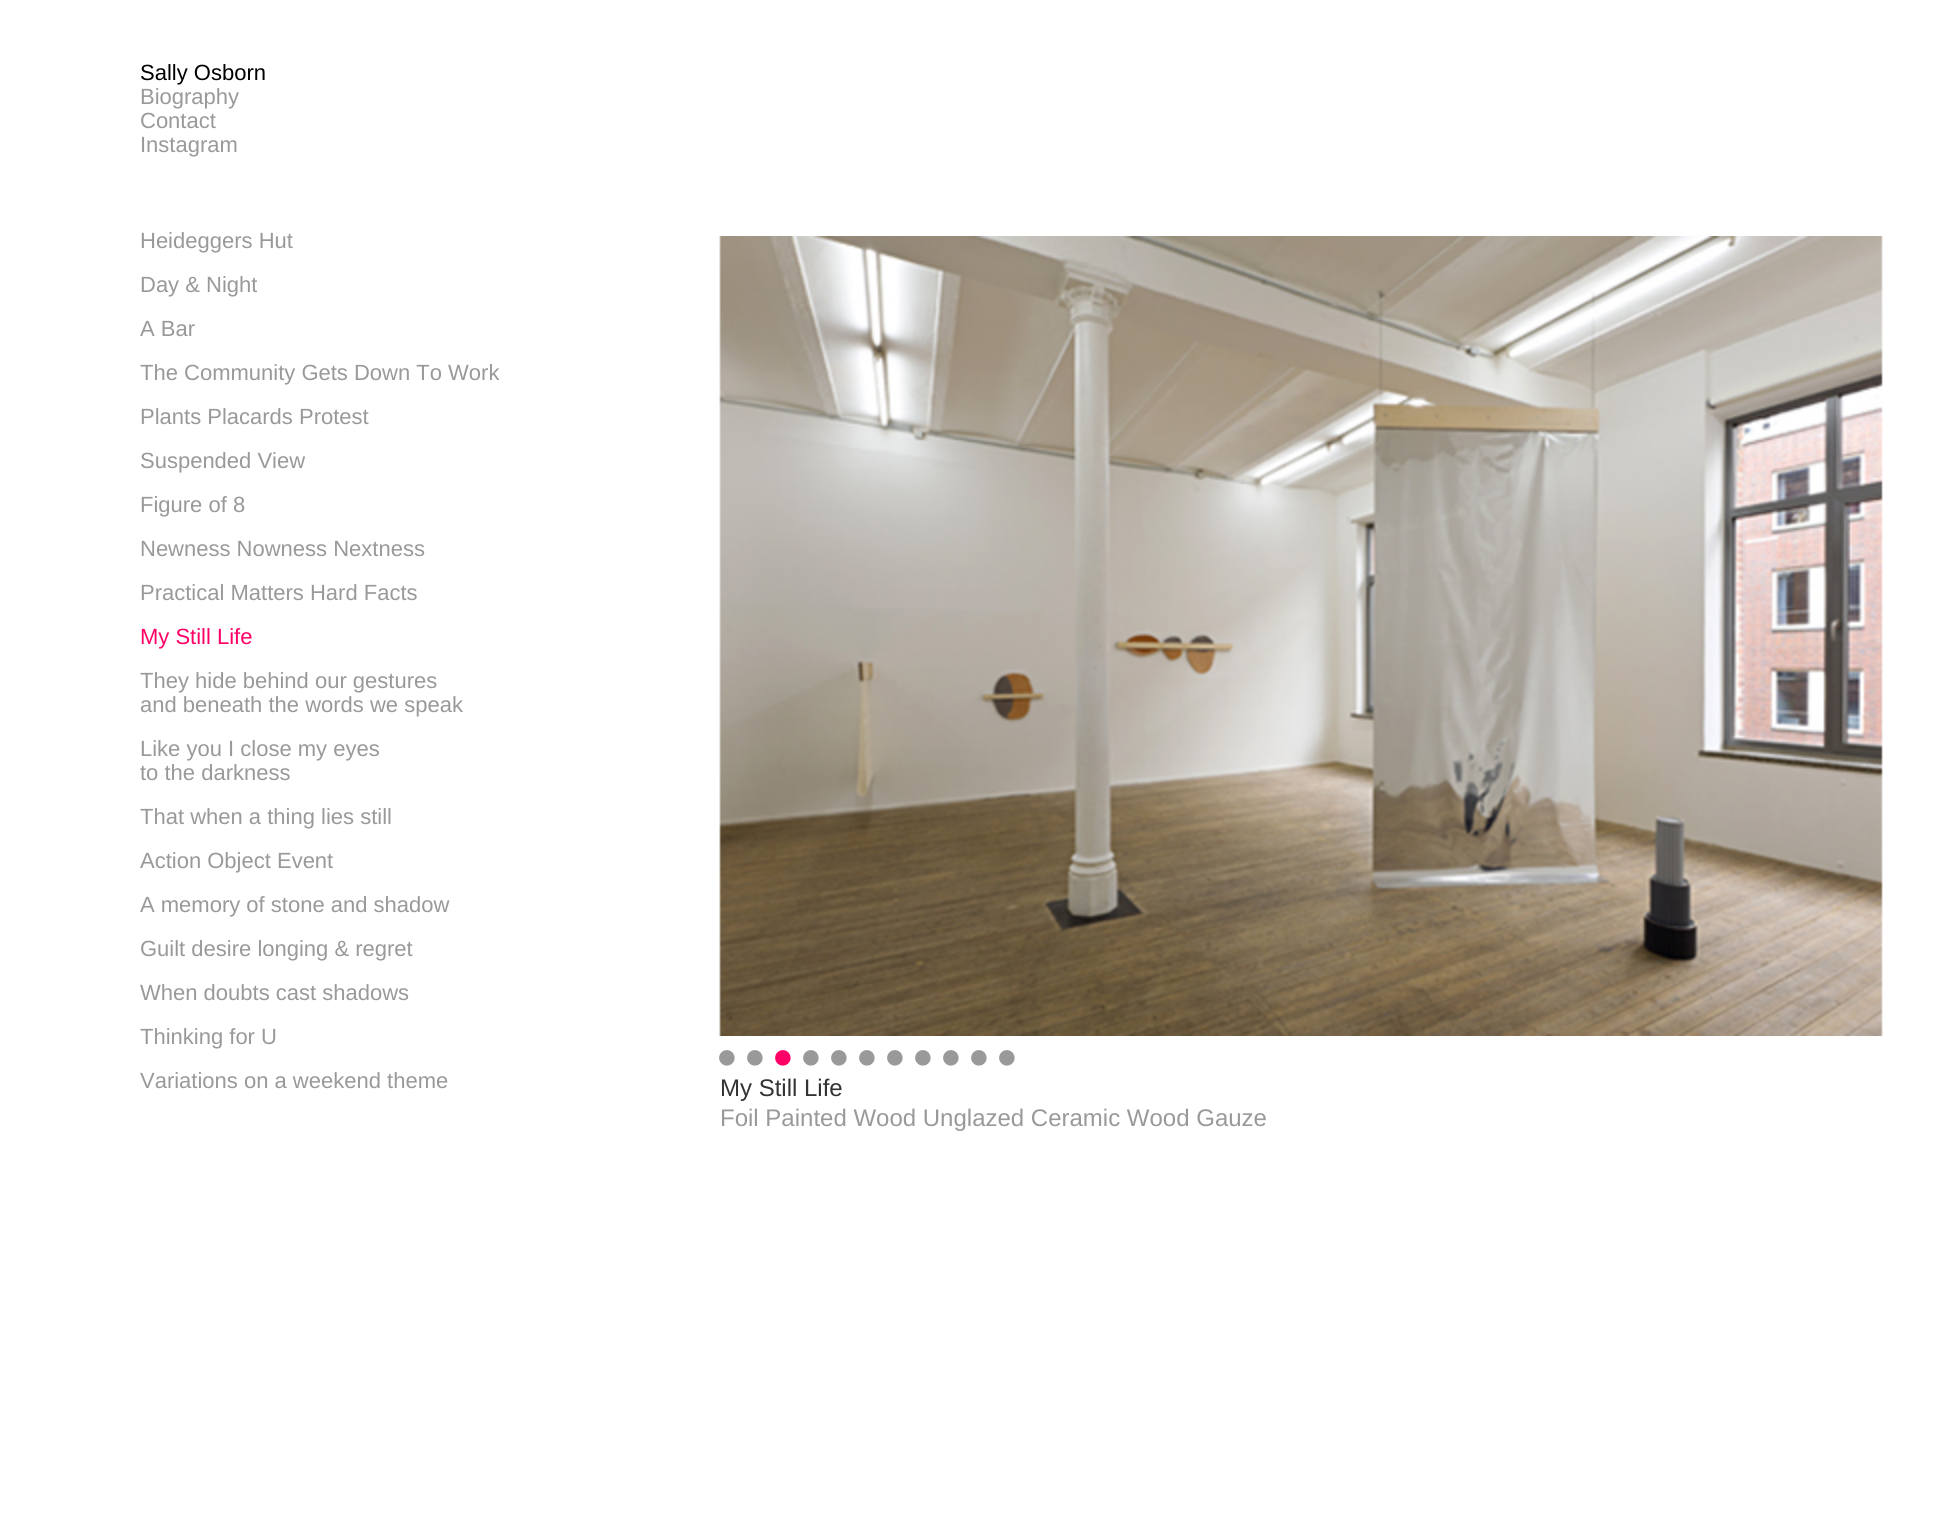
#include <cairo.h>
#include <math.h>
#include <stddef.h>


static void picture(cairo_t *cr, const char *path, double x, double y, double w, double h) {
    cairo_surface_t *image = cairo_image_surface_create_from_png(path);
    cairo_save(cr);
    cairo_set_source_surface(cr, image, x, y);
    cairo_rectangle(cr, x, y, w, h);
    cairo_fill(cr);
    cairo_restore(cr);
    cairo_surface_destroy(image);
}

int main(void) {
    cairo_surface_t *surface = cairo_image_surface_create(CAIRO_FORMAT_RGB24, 1936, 1519);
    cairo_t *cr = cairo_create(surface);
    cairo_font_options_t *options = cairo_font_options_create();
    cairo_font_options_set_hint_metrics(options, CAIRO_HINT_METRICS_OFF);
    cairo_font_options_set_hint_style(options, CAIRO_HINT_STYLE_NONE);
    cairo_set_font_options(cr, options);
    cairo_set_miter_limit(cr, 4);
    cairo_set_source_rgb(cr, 1, 1, 1);
    cairo_paint(cr);
    cairo_select_font_face(cr, "Liberation Sans", CAIRO_FONT_SLANT_NORMAL, CAIRO_FONT_WEIGHT_NORMAL);
    cairo_set_font_size(cr, 22);
    cairo_set_source_rgb(cr, 0, 0, 0);
    cairo_move_to(cr, 140, 80);
    cairo_show_text(cr, "Sally Osborn");
    cairo_set_source_rgb(cr, 0.6, 0.6, 0.6);
    cairo_move_to(cr, 140, 104);
    cairo_show_text(cr, "Biography");
    cairo_move_to(cr, 140, 128);
    cairo_show_text(cr, "Contact");
    cairo_move_to(cr, 140, 152);
    cairo_show_text(cr, "Instagram");
    cairo_move_to(cr, 140, 248);
    cairo_show_text(cr, "Heideggers Hut");
    cairo_move_to(cr, 140, 292);
    cairo_show_text(cr, "Day & Night");
    cairo_move_to(cr, 140, 336);
    cairo_show_text(cr, "A Bar");
    cairo_move_to(cr, 140, 380);
    cairo_show_text(cr, "The Community Gets Down To Work");
    cairo_move_to(cr, 140, 424);
    cairo_show_text(cr, "Plants Placards Protest");
    cairo_move_to(cr, 140, 468);
    cairo_show_text(cr, "Suspended View");
    cairo_move_to(cr, 140, 512);
    cairo_show_text(cr, "Figure of 8");
    cairo_move_to(cr, 140, 556);
    cairo_show_text(cr, "Newness Nowness Nextness");
    cairo_move_to(cr, 140, 600);
    cairo_show_text(cr, "Practical Matters Hard Facts");
    cairo_set_source_rgb(cr, 1, 0, 0.4);
    cairo_move_to(cr, 140, 644);
    cairo_show_text(cr, "My Still Life");
    cairo_set_source_rgb(cr, 0.6, 0.6, 0.6);
    cairo_move_to(cr, 140, 688);
    cairo_show_text(cr, "They hide behind our gestures");
    cairo_move_to(cr, 140, 712);
    cairo_show_text(cr, "and beneath the words we speak");
    cairo_move_to(cr, 140, 756);
    cairo_show_text(cr, "Like you I close my eyes");
    cairo_move_to(cr, 140, 780);
    cairo_show_text(cr, "to the darkness");
    cairo_move_to(cr, 140, 824);
    cairo_show_text(cr, "That when a thing lies still");
    cairo_move_to(cr, 140, 868);
    cairo_show_text(cr, "Action Object Event");
    cairo_move_to(cr, 140, 912);
    cairo_show_text(cr, "A memory of stone and shadow");
    cairo_move_to(cr, 140, 956);
    cairo_show_text(cr, "Guilt desire longing & regret");
    cairo_move_to(cr, 140, 1000);
    cairo_show_text(cr, "When doubts cast shadows");
    cairo_move_to(cr, 140, 1044);
    cairo_show_text(cr, "Thinking for U");
    cairo_move_to(cr, 140, 1088);
    cairo_show_text(cr, "Variations on a weekend theme");
    picture(cr, "img1.png", 719, 236, 1164, 800);
    cairo_set_font_size(cr, 36);
    cairo_move_to(cr, 716, 1068);
    cairo_show_text(cr, "●");
    cairo_move_to(cr, 744, 1068);
    cairo_show_text(cr, "●");
    cairo_set_source_rgb(cr, 1, 0, 0.4);
    cairo_move_to(cr, 772, 1068);
    cairo_show_text(cr, "●");
    cairo_set_source_rgb(cr, 0.6, 0.6, 0.6);
    cairo_move_to(cr, 800, 1068);
    cairo_show_text(cr, "●");
    cairo_move_to(cr, 828, 1068);
    cairo_show_text(cr, "●");
    cairo_move_to(cr, 856, 1068);
    cairo_show_text(cr, "●");
    cairo_move_to(cr, 884, 1068);
    cairo_show_text(cr, "●");
    cairo_move_to(cr, 912, 1068);
    cairo_show_text(cr, "●");
    cairo_move_to(cr, 940, 1068);
    cairo_show_text(cr, "●");
    cairo_move_to(cr, 968, 1068);
    cairo_show_text(cr, "●");
    cairo_move_to(cr, 996, 1068);
    cairo_show_text(cr, "●");
    cairo_set_font_size(cr, 24);
    cairo_set_source_rgb(cr, 0.2, 0.2, 0.2);
    cairo_move_to(cr, 720, 1096);
    cairo_show_text(cr, "My Still Life");
    cairo_set_source_rgb(cr, 0.6, 0.6, 0.6);
    cairo_move_to(cr, 720, 1126);
    cairo_show_text(cr, "Foil Painted Wood Unglazed Ceramic Wood Gauze");
    cairo_surface_write_to_png(surface, "page.png");
    cairo_font_options_destroy(options);
    cairo_destroy(cr);
    cairo_surface_destroy(surface);
    return 0;
}
